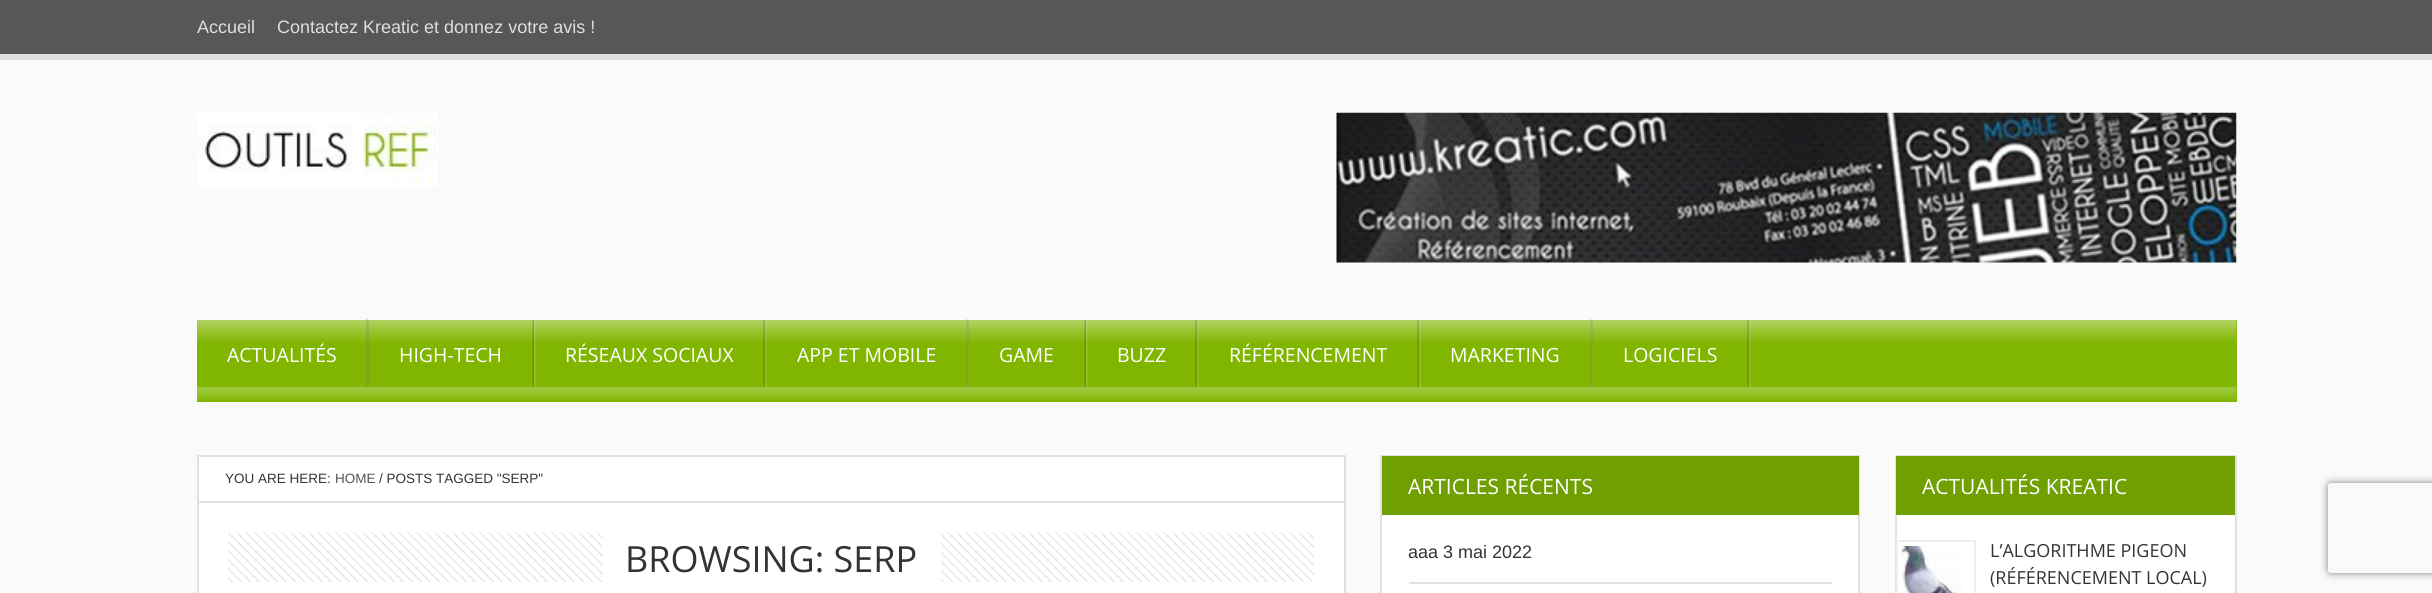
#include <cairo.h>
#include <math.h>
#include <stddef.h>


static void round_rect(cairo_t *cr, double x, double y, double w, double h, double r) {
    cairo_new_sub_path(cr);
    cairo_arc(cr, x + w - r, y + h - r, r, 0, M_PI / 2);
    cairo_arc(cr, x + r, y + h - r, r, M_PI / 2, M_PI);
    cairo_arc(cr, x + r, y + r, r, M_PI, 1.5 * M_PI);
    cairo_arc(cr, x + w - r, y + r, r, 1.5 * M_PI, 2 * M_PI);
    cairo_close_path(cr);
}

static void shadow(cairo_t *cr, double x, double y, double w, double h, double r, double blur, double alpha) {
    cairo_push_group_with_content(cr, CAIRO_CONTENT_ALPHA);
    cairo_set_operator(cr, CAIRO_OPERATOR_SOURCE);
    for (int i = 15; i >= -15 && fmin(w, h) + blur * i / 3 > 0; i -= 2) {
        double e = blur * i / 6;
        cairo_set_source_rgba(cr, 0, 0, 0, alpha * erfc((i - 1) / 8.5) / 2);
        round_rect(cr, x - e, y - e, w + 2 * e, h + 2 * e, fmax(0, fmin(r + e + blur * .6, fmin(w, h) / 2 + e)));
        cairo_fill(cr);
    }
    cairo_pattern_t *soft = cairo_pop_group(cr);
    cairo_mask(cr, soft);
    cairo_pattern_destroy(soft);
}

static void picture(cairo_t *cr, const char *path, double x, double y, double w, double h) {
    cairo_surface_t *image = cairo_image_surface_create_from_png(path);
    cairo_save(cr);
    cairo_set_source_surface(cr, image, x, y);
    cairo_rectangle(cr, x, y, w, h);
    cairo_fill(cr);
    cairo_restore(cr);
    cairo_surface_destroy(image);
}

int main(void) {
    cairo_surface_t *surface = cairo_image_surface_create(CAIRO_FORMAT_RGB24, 2432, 593);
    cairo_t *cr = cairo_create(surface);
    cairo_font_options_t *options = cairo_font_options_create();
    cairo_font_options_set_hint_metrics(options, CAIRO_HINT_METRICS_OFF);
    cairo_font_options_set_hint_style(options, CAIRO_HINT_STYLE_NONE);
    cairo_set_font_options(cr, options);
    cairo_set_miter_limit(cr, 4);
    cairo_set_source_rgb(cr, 0.98, 0.98, 0.98);
    cairo_paint(cr);
    cairo_set_source_rgb(cr, 0.341, 0.341, 0.341);
    cairo_rectangle(cr, 0, 0, 2432, 54);
    cairo_fill(cr);
    cairo_set_source_rgb(cr, 0.867, 0.867, 0.867);
    cairo_rectangle(cr, 0, 54, 2432, 6);
    cairo_fill(cr);
    cairo_select_font_face(cr, "Liberation Sans", CAIRO_FONT_SLANT_NORMAL, CAIRO_FONT_WEIGHT_NORMAL);
    cairo_set_font_size(cr, 18);
    cairo_set_source_rgb(cr, 0.871, 0.871, 0.871);
    cairo_move_to(cr, 197, 33);
    cairo_show_text(cr, "Accueil");
    cairo_move_to(cr, 277, 33);
    cairo_show_text(cr, "Contactez Kreatic et donnez votre avis !");
    picture(cr, "img1.png", 197, 113, 241, 74);
    picture(cr, "img2.png", 1336, 112, 901, 151);
    cairo_set_source_rgb(cr, 0.502, 0.714, 0);
    cairo_rectangle(cr, 197, 320, 2040, 82);
    cairo_fill(cr);
    picture(cr, "img3.png", 197, 320, 2040, 81);
    cairo_set_source_rgba(cr, 0.431, 0.431, 0.431, 0.2);
    cairo_rectangle(cr, 366, 319, 3, 68);
    cairo_fill(cr);
    cairo_select_font_face(cr, "Open Sans", CAIRO_FONT_SLANT_NORMAL, CAIRO_FONT_WEIGHT_NORMAL);
    cairo_set_font_size(cr, 19.5);
    cairo_set_source_rgb(cr, 1, 1, 1);
    cairo_move_to(cr, 227, 362);
    cairo_show_text(cr, "ACTUALITÉS");
    picture(cr, "img4.png", 532, 319, 4, 68);
    cairo_move_to(cr, 399, 362);
    cairo_show_text(cr, "HIGH-TECH");
    picture(cr, "img4.png", 763, 319, 4, 68);
    cairo_move_to(cr, 565, 362);
    cairo_show_text(cr, "RÉSEAUX SOCIAUX");
    cairo_set_source_rgba(cr, 0.49, 0.49, 0.49, 0.2);
    cairo_rectangle(cr, 966, 319, 3, 68);
    cairo_fill(cr);
    cairo_set_source_rgb(cr, 1, 1, 1);
    cairo_move_to(cr, 797, 362);
    cairo_show_text(cr, "APP ET MOBILE");
    picture(cr, "img4.png", 1084, 319, 4, 68);
    cairo_move_to(cr, 999, 362);
    cairo_show_text(cr, "GAME");
    picture(cr, "img4.png", 1195, 319, 4, 68);
    cairo_move_to(cr, 1117, 362);
    cairo_show_text(cr, "BUZZ");
    picture(cr, "img4.png", 1417, 319, 4, 68);
    cairo_move_to(cr, 1229, 362);
    cairo_show_text(cr, "RÉFÉRENCEMENT");
    cairo_set_source_rgba(cr, 0.49, 0.49, 0.49, 0.2);
    cairo_rectangle(cr, 1590, 319, 3, 68);
    cairo_fill(cr);
    cairo_set_source_rgb(cr, 1, 1, 1);
    cairo_move_to(cr, 1450, 362);
    cairo_show_text(cr, "MARKETING");
    picture(cr, "img4.png", 1747, 319, 4, 68);
    cairo_move_to(cr, 1623, 362);
    cairo_show_text(cr, "LOGICIELS");
    cairo_rectangle(cr, 199, 457, 1145, 44);
    cairo_fill(cr);
    cairo_set_source_rgb(cr, 0.882, 0.882, 0.882);
    cairo_rectangle(cr, 197, 455, 1149, 2);
    cairo_fill(cr);
    cairo_rectangle(cr, 1344, 455, 2, 46);
    cairo_fill(cr);
    cairo_rectangle(cr, 197, 455, 2, 46);
    cairo_fill(cr);
    cairo_select_font_face(cr, "Liberation Sans", CAIRO_FONT_SLANT_NORMAL, CAIRO_FONT_WEIGHT_NORMAL);
    cairo_set_font_size(cr, 13.5);
    cairo_set_source_rgb(cr, 0.2, 0.2, 0.2);
    cairo_move_to(cr, 225, 483);
    cairo_show_text(cr, "YOU ARE HERE:");
    cairo_set_source_rgb(cr, 0.333, 0.333, 0.333);
    cairo_move_to(cr, 335, 483);
    cairo_show_text(cr, "HOME");
    cairo_set_source_rgb(cr, 0.2, 0.2, 0.2);
    cairo_move_to(cr, 379, 483);
    cairo_show_text(cr, "/ POSTS TAGGED \"SERP\"");
    cairo_set_source_rgb(cr, 1, 1, 1);
    cairo_rectangle(cr, 198, 502, 1147, 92);
    cairo_fill_preserve(cr);
    cairo_set_source_rgb(cr, 0.882, 0.882, 0.882);
    cairo_stroke(cr);
    picture(cr, "img5.png", 228, 532, 1086, 50);
    cairo_set_source_rgb(cr, 1, 1, 1);
    cairo_rectangle(cr, 603, 532, 338, 50);
    cairo_fill(cr);
    cairo_select_font_face(cr, "Open Sans", CAIRO_FONT_SLANT_NORMAL, CAIRO_FONT_WEIGHT_NORMAL);
    cairo_set_font_size(cr, 36);
    cairo_set_source_rgb(cr, 0.2, 0.2, 0.2);
    cairo_move_to(cr, 625, 572);
    cairo_show_text(cr, "BROWSING: SERP");
    cairo_set_source_rgb(cr, 1, 1, 1);
    cairo_rectangle(cr, 1382, 515, 476, 78);
    cairo_fill(cr);
    cairo_rectangle(cr, 1381, 456, 478, 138);
    cairo_set_source_rgb(cr, 0.882, 0.882, 0.882);
    cairo_stroke(cr);
    cairo_set_source_rgb(cr, 0.439, 0.624, 0.004);
    cairo_rectangle(cr, 1382, 456, 477, 59);
    cairo_fill(cr);
    cairo_set_font_size(cr, 21);
    cairo_set_source_rgb(cr, 1, 1, 1);
    cairo_move_to(cr, 1408, 494);
    cairo_show_text(cr, "ARTICLES RÉCENTS");
    cairo_set_source_rgb(cr, 0.882, 0.882, 0.882);
    cairo_rectangle(cr, 1409, 582, 423, 2);
    cairo_fill(cr);
    cairo_select_font_face(cr, "Liberation Sans", CAIRO_FONT_SLANT_NORMAL, CAIRO_FONT_WEIGHT_NORMAL);
    cairo_set_font_size(cr, 18);
    cairo_set_source_rgb(cr, 0.2, 0.2, 0.2);
    cairo_move_to(cr, 1408, 558);
    cairo_show_text(cr, "aaa 3 mai 2022");
    cairo_set_source_rgb(cr, 1, 1, 1);
    cairo_rectangle(cr, 1897, 515, 338, 78);
    cairo_fill(cr);
    cairo_rectangle(cr, 1896, 456, 340, 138);
    cairo_set_source_rgb(cr, 0.882, 0.882, 0.882);
    cairo_stroke(cr);
    cairo_set_source_rgb(cr, 0.439, 0.624, 0.004);
    cairo_rectangle(cr, 1896, 456, 339, 59);
    cairo_fill(cr);
    cairo_select_font_face(cr, "Open Sans", CAIRO_FONT_SLANT_NORMAL, CAIRO_FONT_WEIGHT_NORMAL);
    cairo_set_font_size(cr, 21);
    cairo_set_source_rgb(cr, 1, 1, 1);
    cairo_move_to(cr, 1922, 494);
    cairo_show_text(cr, "ACTUALITÉS KREATIC");
    cairo_rectangle(cr, 1897, 541, 78, 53);
    cairo_set_source_rgb(cr, 0.933, 0.933, 0.933);
    cairo_stroke(cr);
    picture(cr, "img6.png", 1902, 546, 60, 47);
    cairo_set_font_size(cr, 18);
    cairo_set_source_rgb(cr, 0.2, 0.2, 0.2);
    cairo_move_to(cr, 1990, 557);
    cairo_show_text(cr, "L’ALGORITHME PIGEON");
    cairo_move_to(cr, 1990, 584);
    cairo_show_text(cr, "(RÉFÉRENCEMENT LOCAL)");
    cairo_save(cr);
    cairo_set_fill_rule(cr, CAIRO_FILL_RULE_EVEN_ODD);
    cairo_new_path(cr);
    cairo_move_to(cr, 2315, 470);
    cairo_line_to(cr, 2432, 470);
    cairo_line_to(cr, 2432, 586);
    cairo_line_to(cr, 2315, 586);
    cairo_close_path(cr);
    cairo_move_to(cr, 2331, 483);
    cairo_line_to(cr, 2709, 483);
    cairo_curve_to(cr, 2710.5, 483, 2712, 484.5, 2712, 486);
    cairo_line_to(cr, 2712, 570);
    cairo_curve_to(cr, 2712, 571.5, 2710.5, 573, 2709, 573);
    cairo_line_to(cr, 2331, 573);
    cairo_curve_to(cr, 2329.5, 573, 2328, 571.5, 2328, 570);
    cairo_line_to(cr, 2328, 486);
    cairo_curve_to(cr, 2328, 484.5, 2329.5, 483, 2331, 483);
    cairo_close_path(cr);
    cairo_clip(cr);
    cairo_set_source_rgb(cr, 0.502, 0.502, 0.502);
    shadow(cr, 2328, 483, 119, 90, 3, 4, 1);
    cairo_restore(cr);
    cairo_surface_write_to_png(surface, "page.png");
    cairo_font_options_destroy(options);
    cairo_destroy(cr);
    cairo_surface_destroy(surface);
    return 0;
}
